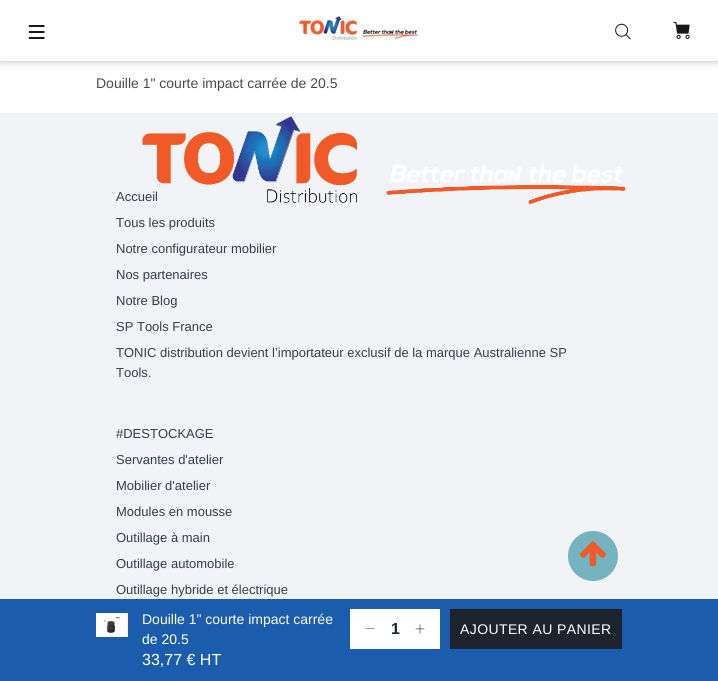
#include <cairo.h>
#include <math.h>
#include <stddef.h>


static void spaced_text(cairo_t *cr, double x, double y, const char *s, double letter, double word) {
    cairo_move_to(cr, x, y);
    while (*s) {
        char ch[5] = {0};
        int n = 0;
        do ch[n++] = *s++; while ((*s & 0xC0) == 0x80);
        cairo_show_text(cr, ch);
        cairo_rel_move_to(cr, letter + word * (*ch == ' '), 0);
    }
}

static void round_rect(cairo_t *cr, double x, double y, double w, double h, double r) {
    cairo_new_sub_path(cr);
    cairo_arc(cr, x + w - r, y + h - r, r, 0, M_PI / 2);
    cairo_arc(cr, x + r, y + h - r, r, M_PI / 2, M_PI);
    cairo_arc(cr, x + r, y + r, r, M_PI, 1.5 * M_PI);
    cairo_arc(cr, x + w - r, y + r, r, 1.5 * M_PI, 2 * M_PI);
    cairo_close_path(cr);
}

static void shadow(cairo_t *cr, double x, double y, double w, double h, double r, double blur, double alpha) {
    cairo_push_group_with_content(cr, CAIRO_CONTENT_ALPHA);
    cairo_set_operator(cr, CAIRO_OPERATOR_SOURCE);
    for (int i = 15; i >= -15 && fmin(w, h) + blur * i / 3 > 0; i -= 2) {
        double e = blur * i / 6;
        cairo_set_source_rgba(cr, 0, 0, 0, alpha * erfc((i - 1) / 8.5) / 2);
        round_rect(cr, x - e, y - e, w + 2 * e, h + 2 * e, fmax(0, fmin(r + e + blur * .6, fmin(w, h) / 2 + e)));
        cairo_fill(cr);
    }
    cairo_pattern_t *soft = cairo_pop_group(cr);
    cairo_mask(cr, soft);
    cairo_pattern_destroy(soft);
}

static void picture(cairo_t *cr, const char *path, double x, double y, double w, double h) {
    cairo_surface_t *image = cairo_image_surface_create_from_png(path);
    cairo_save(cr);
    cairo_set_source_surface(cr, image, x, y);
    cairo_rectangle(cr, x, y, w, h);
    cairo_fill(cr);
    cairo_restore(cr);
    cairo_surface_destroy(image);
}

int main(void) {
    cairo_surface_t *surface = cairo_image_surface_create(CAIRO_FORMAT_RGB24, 718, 681);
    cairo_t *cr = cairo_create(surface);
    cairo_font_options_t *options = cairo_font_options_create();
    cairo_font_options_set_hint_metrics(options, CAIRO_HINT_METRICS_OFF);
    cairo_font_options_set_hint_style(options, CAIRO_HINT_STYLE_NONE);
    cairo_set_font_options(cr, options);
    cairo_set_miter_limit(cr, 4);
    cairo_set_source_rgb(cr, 1, 1, 1);
    cairo_paint(cr);
    cairo_set_source_rgb(cr, 0, 0, 0);
    shadow(cr, 0, 0, 718, 61, 0, 4, 0.3);
    cairo_set_source_rgb(cr, 1, 1, 1);
    cairo_rectangle(cr, 0, 0, 718, 61);
    cairo_fill(cr);
    picture(cr, "img1.png", 28, 25, 17, 14);
    picture(cr, "img2.png", 299, 15, 120, 26);
    picture(cr, "img3.png", 615, 23, 16, 17);
    picture(cr, "img4.png", 673, 22, 17, 17);
    cairo_select_font_face(cr, "Liberation Sans", CAIRO_FONT_SLANT_NORMAL, CAIRO_FONT_WEIGHT_NORMAL);
    cairo_set_font_size(cr, 14);
    cairo_set_source_rgb(cr, 0.294, 0.29, 0.29);
    cairo_move_to(cr, 96, 88);
    cairo_show_text(cr, "Douille 1\" courte impact carrée de 20.5");
    cairo_set_source_rgb(cr, 0.106, 0.365, 0.675);
    cairo_rectangle(cr, 0, 599, 718, 82);
    cairo_fill(cr);
    picture(cr, "img5.png", 96, 613, 32, 24);
    cairo_set_source_rgb(cr, 1, 1, 1);
    cairo_move_to(cr, 142, 624);
    cairo_show_text(cr, "Douille 1\" courte impact carrée");
    cairo_move_to(cr, 142, 644);
    cairo_show_text(cr, "de 20.5");
    cairo_set_font_size(cr, 16);
    cairo_move_to(cr, 142, 665);
    cairo_show_text(cr, "33,77 € HT");
    cairo_rectangle(cr, 350, 609, 90, 40);
    cairo_fill(cr);
    cairo_set_source_rgb(cr, 0.114, 0.141, 0.18);
    cairo_new_path(cr);
    cairo_move_to(cr, 374.5, 628.5);
    cairo_line_to(cr, 374.5, 629);
    cairo_line_to(cr, 365.5, 629);
    cairo_line_to(cr, 366, 628.5);
    cairo_close_path(cr);
    cairo_fill(cr);
    cairo_select_font_face(cr, "Liberation Sans", CAIRO_FONT_SLANT_NORMAL, CAIRO_FONT_WEIGHT_BOLD);
    cairo_move_to(cr, 391, 634);
    cairo_show_text(cr, "1");
    picture(cr, "img6.png", 415, 624, 10, 10);
    cairo_rectangle(cr, 450, 609, 172, 40);
    cairo_fill(cr);
    cairo_select_font_face(cr, "Liberation Sans", CAIRO_FONT_SLANT_NORMAL, CAIRO_FONT_WEIGHT_NORMAL);
    cairo_set_font_size(cr, 14);
    cairo_set_source_rgb(cr, 1, 1, 1);
    spaced_text(cr, 460, 634, "AJOUTER AU PANIER", 0.4, 0);
    cairo_set_source_rgb(cr, 0.945, 0.953, 0.961);
    cairo_rectangle(cr, 0, 113, 718, 486);
    cairo_fill(cr);
    picture(cr, "img7.png", 142, 116, 484, 89);
    cairo_set_font_size(cr, 13);
    cairo_set_source_rgb(cr, 0.216, 0.243, 0.282);
    cairo_move_to(cr, 116, 201);
    cairo_show_text(cr, "Accueil");
    cairo_move_to(cr, 116, 227);
    cairo_show_text(cr, "Tous les produits");
    cairo_move_to(cr, 116, 253);
    cairo_show_text(cr, "Notre configurateur mobilier");
    cairo_move_to(cr, 116, 279);
    cairo_show_text(cr, "Nos partenaires");
    cairo_move_to(cr, 116, 305);
    cairo_show_text(cr, "Notre Blog");
    cairo_move_to(cr, 116, 331);
    cairo_show_text(cr, "SP Tools France");
    cairo_move_to(cr, 116, 357);
    cairo_show_text(cr, "TONIC distribution devient l’importateur exclusif de la marque Australienne SP");
    cairo_move_to(cr, 116, 377);
    cairo_show_text(cr, "Tools.");
    cairo_move_to(cr, 116, 438);
    cairo_show_text(cr, "#DESTOCKAGE");
    cairo_move_to(cr, 116, 464);
    cairo_show_text(cr, "Servantes d'atelier");
    cairo_move_to(cr, 116, 490);
    cairo_show_text(cr, "Mobilier d'atelier");
    cairo_move_to(cr, 116, 516);
    cairo_show_text(cr, "Modules en mousse");
    cairo_move_to(cr, 116, 542);
    cairo_show_text(cr, "Outillage à main");
    cairo_move_to(cr, 116, 568);
    cairo_show_text(cr, "Outillage automobile");
    cairo_move_to(cr, 116, 594);
    cairo_show_text(cr, "Outillage hybride et électrique");
    cairo_set_source_rgb(cr, 0.463, 0.702, 0.753);
    cairo_new_path(cr);
    cairo_arc(cr, 593, 556, 25, 0, 2 * M_PI);
    cairo_fill(cr);
    picture(cr, "img8.png", 579, 541, 27, 26);
    cairo_surface_write_to_png(surface, "page.png");
    cairo_font_options_destroy(options);
    cairo_destroy(cr);
    cairo_surface_destroy(surface);
    return 0;
}
